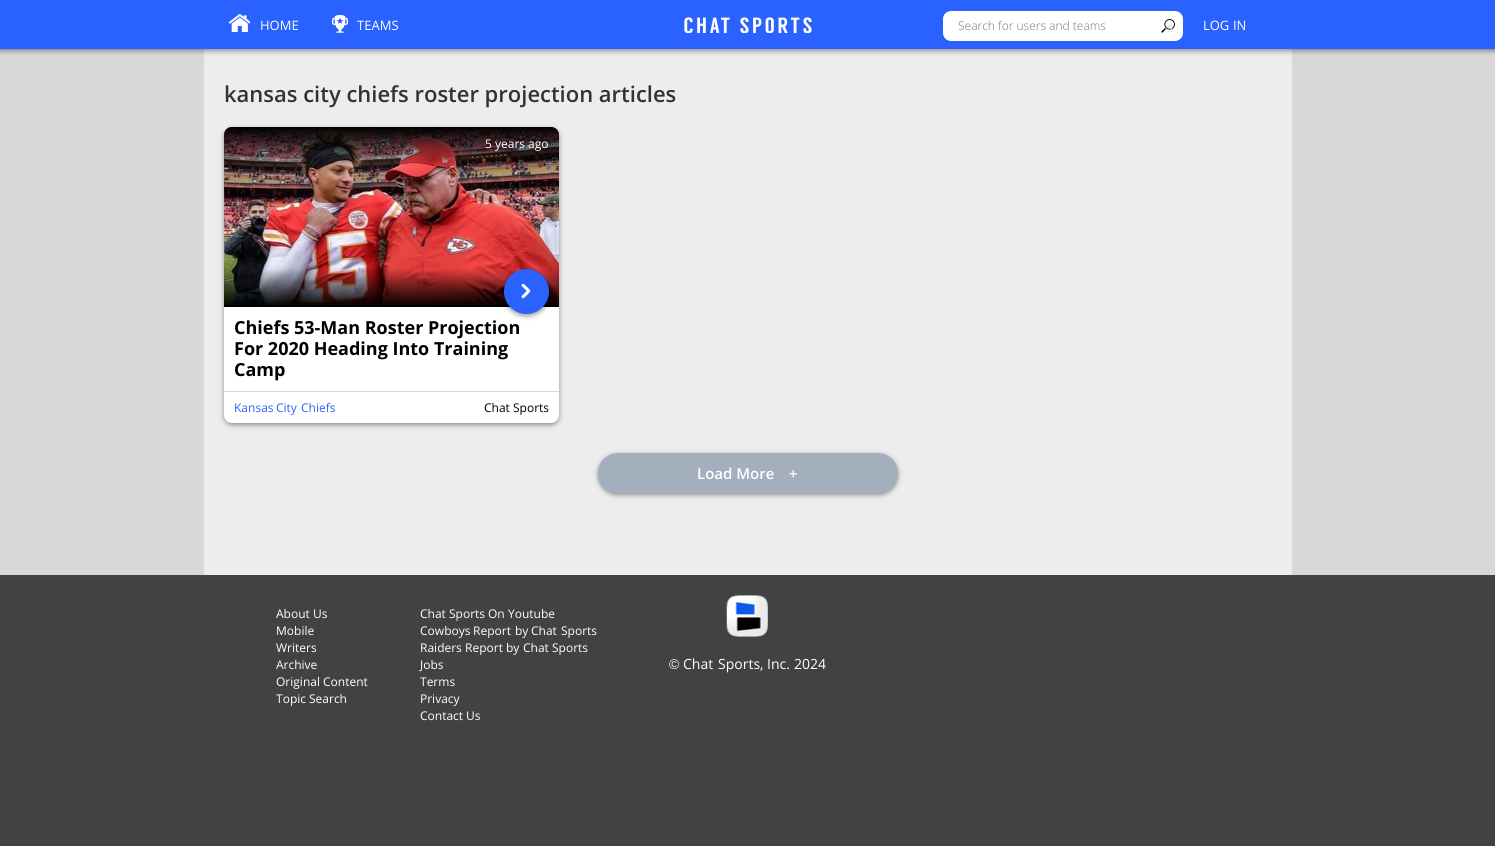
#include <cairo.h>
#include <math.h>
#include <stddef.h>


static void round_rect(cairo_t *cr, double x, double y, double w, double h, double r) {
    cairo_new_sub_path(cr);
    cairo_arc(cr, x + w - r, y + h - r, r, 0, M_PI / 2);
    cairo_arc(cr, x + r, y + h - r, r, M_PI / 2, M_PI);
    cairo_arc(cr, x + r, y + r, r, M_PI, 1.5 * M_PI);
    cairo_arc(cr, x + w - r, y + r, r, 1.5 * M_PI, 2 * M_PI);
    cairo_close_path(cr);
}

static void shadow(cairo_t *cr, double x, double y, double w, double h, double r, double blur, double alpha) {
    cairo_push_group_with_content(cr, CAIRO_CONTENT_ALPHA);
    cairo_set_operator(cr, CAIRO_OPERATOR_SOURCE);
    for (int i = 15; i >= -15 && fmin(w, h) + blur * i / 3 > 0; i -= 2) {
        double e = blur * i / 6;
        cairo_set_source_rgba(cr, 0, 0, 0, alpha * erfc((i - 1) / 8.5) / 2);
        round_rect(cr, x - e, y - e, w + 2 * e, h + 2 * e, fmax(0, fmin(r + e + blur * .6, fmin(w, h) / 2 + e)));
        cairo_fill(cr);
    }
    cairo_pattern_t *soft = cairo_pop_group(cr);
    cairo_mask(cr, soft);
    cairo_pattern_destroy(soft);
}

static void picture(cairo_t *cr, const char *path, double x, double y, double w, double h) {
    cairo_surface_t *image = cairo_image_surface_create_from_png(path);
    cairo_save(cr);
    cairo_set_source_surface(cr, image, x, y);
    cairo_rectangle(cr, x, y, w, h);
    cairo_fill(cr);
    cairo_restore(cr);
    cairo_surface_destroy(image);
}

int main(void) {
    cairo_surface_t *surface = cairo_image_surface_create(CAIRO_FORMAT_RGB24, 1495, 846);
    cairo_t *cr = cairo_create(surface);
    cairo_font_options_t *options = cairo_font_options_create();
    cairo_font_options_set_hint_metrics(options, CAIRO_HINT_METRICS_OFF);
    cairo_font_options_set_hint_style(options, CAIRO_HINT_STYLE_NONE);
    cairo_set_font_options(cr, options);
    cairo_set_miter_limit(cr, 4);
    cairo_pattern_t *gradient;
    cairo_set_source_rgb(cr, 0.847, 0.847, 0.847);
    cairo_paint(cr);
    cairo_set_source_rgb(cr, 0.933, 0.929, 0.929);
    cairo_rectangle(cr, 204, 49, 1088, 526);
    cairo_fill(cr);
    cairo_set_source_rgb(cr, 0, 0, 0);
    shadow(cr, 0, 2, 1495, 49, 0, 2.5, 0.4);
    cairo_set_source_rgb(cr, 0.161, 0.384, 1);
    cairo_rectangle(cr, 0, 0, 1495, 49);
    cairo_fill(cr);
    picture(cr, "img1.png", 229, 14, 21, 18);
    cairo_select_font_face(cr, "Open Sans", CAIRO_FONT_SLANT_NORMAL, CAIRO_FONT_WEIGHT_NORMAL);
    cairo_set_font_size(cr, 13);
    cairo_set_source_rgb(cr, 1, 1, 1);
    cairo_move_to(cr, 260, 30);
    cairo_show_text(cr, "HOME");
    picture(cr, "img2.png", 332, 15, 16, 18);
    cairo_move_to(cr, 357, 30);
    cairo_show_text(cr, "TEAMS");
    picture(cr, "img3.png", 684, 17, 128, 16);
    round_rect(cr, 943, 11, 240, 30, 8);
    cairo_fill(cr);
    cairo_select_font_face(cr, "Open Sans Light", CAIRO_FONT_SLANT_NORMAL, CAIRO_FONT_WEIGHT_NORMAL);
    cairo_set_font_size(cr, 12);
    cairo_set_source_rgb(cr, 0.459, 0.459, 0.459);
    cairo_move_to(cr, 958, 30);
    cairo_show_text(cr, "Search for users and teams");
    picture(cr, "img4.png", 1161, 19, 14, 14);
    cairo_select_font_face(cr, "Liberation Sans", CAIRO_FONT_SLANT_NORMAL, CAIRO_FONT_WEIGHT_NORMAL);
    cairo_set_font_size(cr, 13);
    cairo_set_source_rgb(cr, 0.878, 0.878, 0.878);
    cairo_move_to(cr, 1167, 32);
    cairo_show_text(cr, "s");
    cairo_select_font_face(cr, "Open Sans", CAIRO_FONT_SLANT_NORMAL, CAIRO_FONT_WEIGHT_NORMAL);
    cairo_set_source_rgb(cr, 1, 1, 1);
    cairo_move_to(cr, 1203, 30);
    cairo_show_text(cr, "LOG");
    cairo_move_to(cr, 1233, 30);
    cairo_show_text(cr, "IN");
    cairo_select_font_face(cr, "Open Sans SemiBold", CAIRO_FONT_SLANT_NORMAL, CAIRO_FONT_WEIGHT_NORMAL);
    cairo_set_font_size(cr, 22);
    cairo_set_source_rgb(cr, 0.2, 0.2, 0.2);
    cairo_move_to(cr, 224, 102);
    cairo_show_text(cr, "kansas city chiefs roster projection articles");
    cairo_set_source_rgb(cr, 0, 0, 0);
    shadow(cr, 224, 129, 335, 296, 8, 2.5, 0.4);
    cairo_set_source_rgb(cr, 1, 1, 1);
    round_rect(cr, 224, 127, 335, 296, 8);
    cairo_fill(cr);
    picture(cr, "img5.png", 224, 127, 335, 180);
    gradient = cairo_pattern_create_linear(392, 127, 392, 166);
    cairo_pattern_add_color_stop_rgba(gradient, 0, 0, 0, 0, 1);
    cairo_pattern_add_color_stop_rgba(gradient, 1, 0, 0, 0, 0);
    cairo_set_source(cr, gradient);
    cairo_pattern_destroy(gradient);
    cairo_new_path(cr);
    cairo_move_to(cr, 232, 127);
    cairo_line_to(cr, 551, 127);
    cairo_curve_to(cr, 555.5, 127, 559, 130.5, 559, 135);
    cairo_line_to(cr, 559, 166);
    cairo_line_to(cr, 224, 166);
    cairo_line_to(cr, 224, 135);
    cairo_curve_to(cr, 224, 130.5, 227.5, 127, 232, 127);
    cairo_close_path(cr);
    cairo_fill(cr);
    cairo_select_font_face(cr, "Open Sans", CAIRO_FONT_SLANT_NORMAL, CAIRO_FONT_WEIGHT_NORMAL);
    cairo_set_font_size(cr, 12);
    cairo_set_source_rgb(cr, 1, 1, 1);
    cairo_move_to(cr, 485, 148);
    cairo_show_text(cr, "5");
    cairo_move_to(cr, 495, 148);
    cairo_show_text(cr, "years");
    cairo_move_to(cr, 528, 148);
    cairo_show_text(cr, "ago");
    cairo_set_source_rgb(cr, 0, 0, 0);
    shadow(cr, 504, 271, 45, 45, 22.5, 2.5, 0.4);
    cairo_set_source_rgb(cr, 0.161, 0.384, 1);
    cairo_arc(cr, 526.5, 291.5, 22.5, 0, 2 * M_PI);
    cairo_fill(cr);
    picture(cr, "img6.png", 521, 284, 10, 15);
    cairo_select_font_face(cr, "Open Sans", CAIRO_FONT_SLANT_NORMAL, CAIRO_FONT_WEIGHT_BOLD);
    cairo_set_font_size(cr, 18);
    cairo_set_source_rgb(cr, 0, 0, 0);
    cairo_move_to(cr, 234, 334);
    cairo_show_text(cr, "Chiefs 53-Man Roster Projection");
    cairo_move_to(cr, 234, 355);
    cairo_show_text(cr, "For 2020 Heading Into Training");
    cairo_move_to(cr, 234, 376);
    cairo_show_text(cr, "Camp");
    cairo_set_source_rgb(cr, 0.847, 0.847, 0.847);
    cairo_rectangle(cr, 224, 391, 335, 1);
    cairo_fill(cr);
    cairo_select_font_face(cr, "Open Sans", CAIRO_FONT_SLANT_NORMAL, CAIRO_FONT_WEIGHT_NORMAL);
    cairo_set_font_size(cr, 12);
    cairo_set_source_rgb(cr, 0.161, 0.384, 1);
    cairo_move_to(cr, 234, 412);
    cairo_show_text(cr, "Kansas");
    cairo_move_to(cr, 276, 412);
    cairo_show_text(cr, "City");
    cairo_move_to(cr, 301, 412);
    cairo_show_text(cr, "Chiefs");
    cairo_set_source_rgb(cr, 0, 0, 0);
    cairo_move_to(cr, 484, 412);
    cairo_show_text(cr, "Chat");
    cairo_move_to(cr, 513, 412);
    cairo_show_text(cr, "Sports");
    cairo_set_source_rgb(cr, 0, 0, 0);
    shadow(cr, 598, 455, 300, 40, 20, 2.5, 0.4);
    cairo_set_source_rgb(cr, 0.643, 0.686, 0.741);
    round_rect(cr, 598, 453, 300, 40, 20);
    cairo_fill(cr);
    cairo_select_font_face(cr, "Open Sans SemiBold", CAIRO_FONT_SLANT_NORMAL, CAIRO_FONT_WEIGHT_NORMAL);
    cairo_set_font_size(cr, 15);
    cairo_set_source_rgb(cr, 1, 1, 1);
    cairo_move_to(cr, 697, 479);
    cairo_show_text(cr, "Load More");
    cairo_move_to(cr, 789, 479);
    cairo_show_text(cr, "+");
    cairo_set_source_rgb(cr, 0.259, 0.259, 0.259);
    cairo_rectangle(cr, 0, 575, 1495, 271);
    cairo_fill(cr);
    cairo_select_font_face(cr, "Open Sans", CAIRO_FONT_SLANT_NORMAL, CAIRO_FONT_WEIGHT_NORMAL);
    cairo_set_font_size(cr, 12);
    cairo_set_source_rgb(cr, 1, 1, 1);
    cairo_move_to(cr, 276, 618);
    cairo_show_text(cr, "About");
    cairo_move_to(cr, 313, 618);
    cairo_show_text(cr, "Us");
    cairo_move_to(cr, 276, 635);
    cairo_show_text(cr, "Mobile");
    cairo_move_to(cr, 276, 652);
    cairo_show_text(cr, "Writers");
    cairo_move_to(cr, 276, 669);
    cairo_show_text(cr, "Archive");
    cairo_move_to(cr, 276, 686);
    cairo_show_text(cr, "Original");
    cairo_move_to(cr, 323, 686);
    cairo_show_text(cr, "Content");
    cairo_move_to(cr, 276, 703);
    cairo_show_text(cr, "Topic");
    cairo_move_to(cr, 309, 703);
    cairo_show_text(cr, "Search");
    cairo_move_to(cr, 420, 618);
    cairo_show_text(cr, "Chat");
    cairo_move_to(cr, 449, 618);
    cairo_show_text(cr, "Sports");
    cairo_move_to(cr, 488, 618);
    cairo_show_text(cr, "On");
    cairo_move_to(cr, 508, 618);
    cairo_show_text(cr, "Youtube");
    cairo_move_to(cr, 420, 635);
    cairo_show_text(cr, "Cowboys");
    cairo_move_to(cr, 473, 635);
    cairo_show_text(cr, "Report");
    cairo_move_to(cr, 515, 635);
    cairo_show_text(cr, "by");
    cairo_move_to(cr, 531, 635);
    cairo_show_text(cr, "Chat");
    cairo_move_to(cr, 561, 635);
    cairo_show_text(cr, "Sports");
    cairo_move_to(cr, 420, 652);
    cairo_show_text(cr, "Raiders");
    cairo_move_to(cr, 465, 652);
    cairo_show_text(cr, "Report");
    cairo_move_to(cr, 506, 652);
    cairo_show_text(cr, "by");
    cairo_move_to(cr, 523, 652);
    cairo_show_text(cr, "Chat");
    cairo_move_to(cr, 552, 652);
    cairo_show_text(cr, "Sports");
    cairo_move_to(cr, 420, 669);
    cairo_show_text(cr, "Jobs");
    cairo_move_to(cr, 420, 686);
    cairo_show_text(cr, "Terms");
    cairo_move_to(cr, 420, 703);
    cairo_show_text(cr, "Privacy");
    cairo_move_to(cr, 420, 720);
    cairo_show_text(cr, "Contact");
    cairo_move_to(cr, 466, 720);
    cairo_show_text(cr, "Us");
    picture(cr, "img7.png", 726, 595, 42, 42);
    cairo_select_font_face(cr, "Liberation Sans", CAIRO_FONT_SLANT_NORMAL, CAIRO_FONT_WEIGHT_NORMAL);
    cairo_set_font_size(cr, 14);
    cairo_move_to(cr, 669, 669);
    cairo_show_text(cr, "©");
    cairo_select_font_face(cr, "Open Sans", CAIRO_FONT_SLANT_NORMAL, CAIRO_FONT_WEIGHT_NORMAL);
    cairo_move_to(cr, 683, 669);
    cairo_show_text(cr, "Chat");
    cairo_move_to(cr, 718, 669);
    cairo_show_text(cr, "Sports,");
    cairo_move_to(cr, 767, 669);
    cairo_show_text(cr, "Inc.");
    cairo_move_to(cr, 794, 669);
    cairo_show_text(cr, "2024");
    cairo_surface_write_to_png(surface, "page.png");
    cairo_font_options_destroy(options);
    cairo_destroy(cr);
    cairo_surface_destroy(surface);
    return 0;
}
